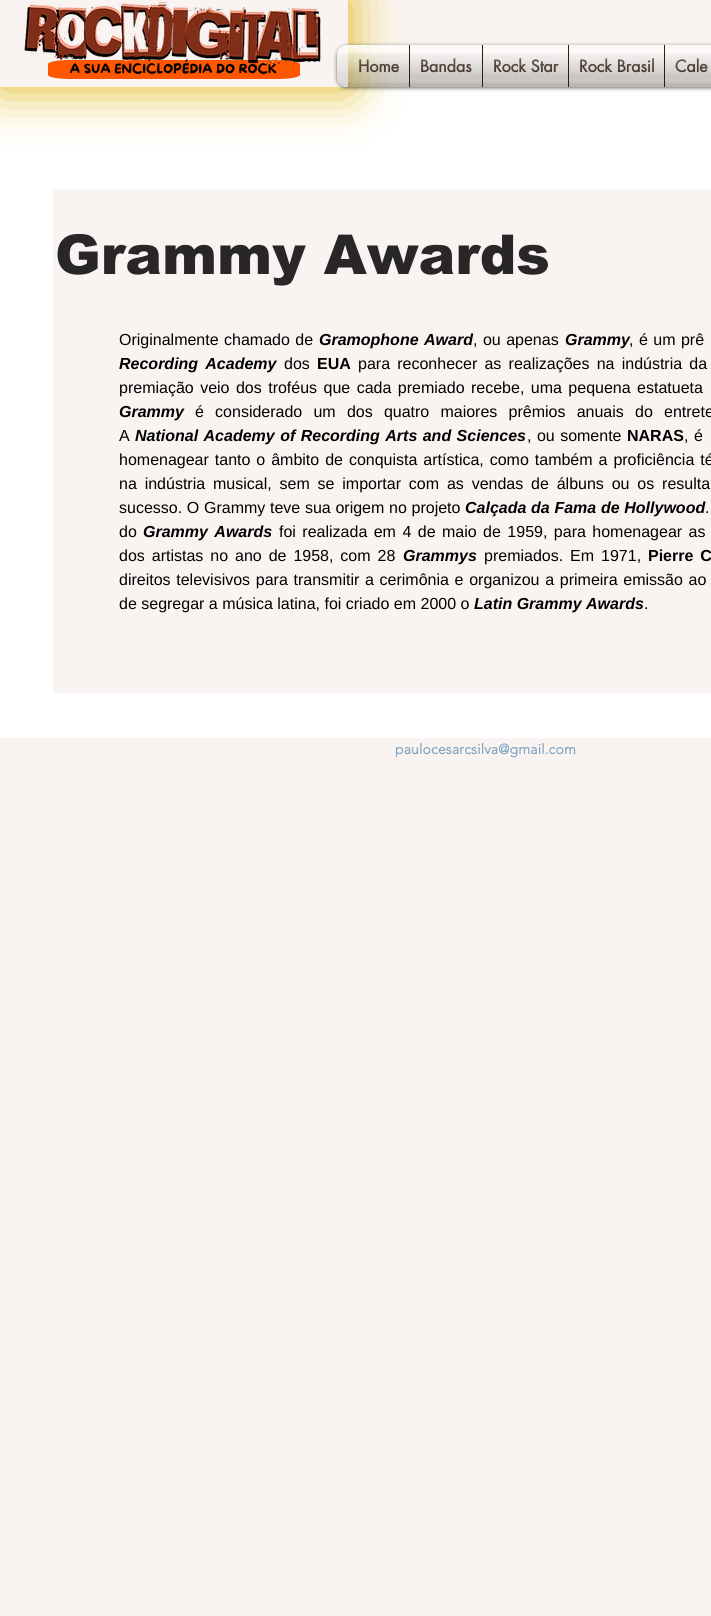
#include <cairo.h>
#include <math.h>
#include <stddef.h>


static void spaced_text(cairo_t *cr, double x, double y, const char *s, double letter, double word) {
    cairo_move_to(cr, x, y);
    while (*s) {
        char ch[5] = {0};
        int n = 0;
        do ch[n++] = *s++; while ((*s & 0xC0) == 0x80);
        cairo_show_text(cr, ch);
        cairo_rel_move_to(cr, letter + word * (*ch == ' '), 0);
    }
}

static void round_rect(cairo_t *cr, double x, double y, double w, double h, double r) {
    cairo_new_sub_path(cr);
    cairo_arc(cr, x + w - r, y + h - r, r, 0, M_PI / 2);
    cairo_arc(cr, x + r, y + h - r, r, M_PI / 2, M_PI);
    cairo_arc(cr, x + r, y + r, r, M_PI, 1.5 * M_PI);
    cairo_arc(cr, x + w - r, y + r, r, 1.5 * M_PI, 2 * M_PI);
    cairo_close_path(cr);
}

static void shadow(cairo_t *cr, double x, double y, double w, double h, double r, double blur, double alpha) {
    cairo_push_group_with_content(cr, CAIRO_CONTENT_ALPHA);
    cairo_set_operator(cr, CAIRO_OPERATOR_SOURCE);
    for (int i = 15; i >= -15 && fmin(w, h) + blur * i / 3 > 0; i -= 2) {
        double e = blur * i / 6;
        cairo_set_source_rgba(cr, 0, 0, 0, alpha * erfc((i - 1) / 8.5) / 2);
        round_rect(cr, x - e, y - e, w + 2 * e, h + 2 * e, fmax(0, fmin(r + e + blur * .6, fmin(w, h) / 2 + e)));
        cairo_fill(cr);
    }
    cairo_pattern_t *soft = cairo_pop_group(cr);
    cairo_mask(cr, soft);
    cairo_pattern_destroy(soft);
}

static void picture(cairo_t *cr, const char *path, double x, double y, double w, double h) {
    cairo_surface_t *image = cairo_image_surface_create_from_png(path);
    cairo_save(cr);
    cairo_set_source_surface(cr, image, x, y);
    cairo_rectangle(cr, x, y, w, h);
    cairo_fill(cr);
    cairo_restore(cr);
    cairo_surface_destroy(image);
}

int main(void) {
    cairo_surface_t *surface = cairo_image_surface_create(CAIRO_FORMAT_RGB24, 711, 1616);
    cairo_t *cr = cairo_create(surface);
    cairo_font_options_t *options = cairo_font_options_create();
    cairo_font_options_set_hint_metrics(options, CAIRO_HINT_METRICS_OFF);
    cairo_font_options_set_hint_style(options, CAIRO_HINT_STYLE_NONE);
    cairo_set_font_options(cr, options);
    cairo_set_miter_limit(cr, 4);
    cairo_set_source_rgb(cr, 0.973, 0.957, 0.945);
    cairo_paint(cr);
    cairo_set_source_rgb(cr, 1, 1, 1);
    cairo_rectangle(cr, 0, 87, 711, 651);
    cairo_fill(cr);
    cairo_save(cr);
    cairo_set_fill_rule(cr, CAIRO_FILL_RULE_EVEN_ODD);
    cairo_new_path(cr);
    cairo_move_to(cr, 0, 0);
    cairo_line_to(cr, 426, 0);
    cairo_line_to(cr, 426, 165);
    cairo_line_to(cr, 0, 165);
    cairo_close_path(cr);
    cairo_move_to(cr, 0, 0);
    cairo_line_to(cr, 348, 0);
    cairo_line_to(cr, 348, 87);
    cairo_line_to(cr, 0, 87);
    cairo_close_path(cr);
    cairo_clip(cr);
    cairo_set_source_rgb(cr, 0.878, 0.722, 0.106);
    shadow(cr, -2, -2, 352, 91, 0, 25, 1);
    cairo_restore(cr);
    cairo_set_source_rgb(cr, 1, 0.341, 0);
    cairo_new_path(cr);
    cairo_move_to(cr, 279, 79);
    cairo_line_to(cr, 69, 79);
    cairo_curve_to(cr, 58, 79, 48, 77, 48, 75);
    cairo_line_to(cr, 48, 64);
    cairo_curve_to(cr, 48, 62, 57, 60, 69, 60);
    cairo_line_to(cr, 279, 60);
    cairo_curve_to(cr, 290, 60, 300, 62, 300, 64);
    cairo_line_to(cr, 300, 75);
    cairo_curve_to(cr, 300, 77, 290, 79, 279, 79);
    cairo_close_path(cr);
    cairo_fill(cr);
    picture(cr, "img1.png", 24, 2, 297, 64);
    picture(cr, "img2.png", 70, 59, 207, 16);
    cairo_save(cr);
    cairo_set_fill_rule(cr, CAIRO_FILL_RULE_EVEN_ODD);
    cairo_new_path(cr);
    cairo_move_to(cr, 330, 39);
    cairo_line_to(cr, 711, 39);
    cairo_line_to(cr, 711, 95);
    cairo_line_to(cr, 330, 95);
    cairo_close_path(cr);
    cairo_move_to(cr, 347, 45);
    cairo_line_to(cr, 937, 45);
    cairo_curve_to(cr, 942.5, 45, 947, 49.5, 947, 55);
    cairo_line_to(cr, 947, 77);
    cairo_curve_to(cr, 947, 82.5, 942.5, 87, 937, 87);
    cairo_line_to(cr, 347, 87);
    cairo_curve_to(cr, 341.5, 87, 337, 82.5, 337, 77);
    cairo_line_to(cr, 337, 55);
    cairo_curve_to(cr, 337, 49.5, 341.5, 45, 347, 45);
    cairo_close_path(cr);
    cairo_clip(cr);
    cairo_set_source_rgb(cr, 0, 0, 0);
    shadow(cr, 337, 46, 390, 42, 10, 2, 0.6);
    cairo_restore(cr);
    picture(cr, "img3.png", 337, 45, 374, 39);
    picture(cr, "img4.png", 337, 53, 374, 34);
    cairo_select_font_face(cr, "futura", CAIRO_FONT_SLANT_NORMAL, CAIRO_FONT_WEIGHT_BOLD);
    cairo_set_font_size(cr, 16);
    cairo_set_source_rgb(cr, 0.188, 0.114, 0.063);
    cairo_move_to(cr, 358, 72);
    cairo_show_text(cr, "Home");
    picture(cr, "img5.png", 348, 45, 61, 41);
    picture(cr, "img6.png", 348, 53, 61, 34);
    cairo_rectangle(cr, 409, 45, 1, 42);
    cairo_fill(cr);
    cairo_move_to(cr, 420, 72);
    cairo_show_text(cr, "Bandas");
    picture(cr, "img7.png", 410, 52, 72, 22);
    picture(cr, "img8.png", 410, 53, 72, 34);
    cairo_rectangle(cr, 482, 45, 1, 42);
    cairo_fill(cr);
    cairo_move_to(cr, 493, 72);
    cairo_show_text(cr, "Rock Star");
    picture(cr, "img9.png", 483, 52, 85, 22);
    picture(cr, "img10.png", 483, 53, 85, 34);
    cairo_rectangle(cr, 568, 45, 1, 42);
    cairo_fill(cr);
    cairo_move_to(cr, 579, 72);
    cairo_show_text(cr, "Rock Brasil");
    picture(cr, "img11.png", 569, 52, 95, 22);
    picture(cr, "img12.png", 569, 53, 95, 34);
    cairo_rectangle(cr, 664, 45, 1, 42);
    cairo_fill(cr);
    cairo_move_to(cr, 675, 72);
    cairo_show_text(cr, "Cale");
    picture(cr, "img13.png", 665, 52, 46, 22);
    picture(cr, "img14.png", 665, 53, 46, 34);
    cairo_set_source_rgb(cr, 0.973, 0.957, 0.945);
    cairo_rectangle(cr, 53, 189, 658, 504);
    cairo_fill(cr);
    cairo_select_font_face(cr, "arial Black", CAIRO_FONT_SLANT_NORMAL, CAIRO_FONT_WEIGHT_NORMAL);
    cairo_set_font_size(cr, 55);
    cairo_set_source_rgb(cr, 0.157, 0.149, 0.149);
    cairo_move_to(cr, 55, 274);
    cairo_show_text(cr, "Grammy Awards");
    cairo_select_font_face(cr, "Liberation Sans", CAIRO_FONT_SLANT_NORMAL, CAIRO_FONT_WEIGHT_NORMAL);
    cairo_set_font_size(cr, 16);
    cairo_set_source_rgb(cr, 0, 0, 0);
    spaced_text(cr, 119, 345, "Originalmente chamado de", 0, 1);
    cairo_select_font_face(cr, "Liberation Sans", CAIRO_FONT_SLANT_ITALIC, CAIRO_FONT_WEIGHT_BOLD);
    spaced_text(cr, 319, 345, "Gramophone Award", 0, 1);
    cairo_select_font_face(cr, "Liberation Sans", CAIRO_FONT_SLANT_NORMAL, CAIRO_FONT_WEIGHT_NORMAL);
    spaced_text(cr, 473, 345, ", ou apenas", 0, 1);
    cairo_select_font_face(cr, "Liberation Sans", CAIRO_FONT_SLANT_ITALIC, CAIRO_FONT_WEIGHT_BOLD);
    cairo_move_to(cr, 565, 345);
    cairo_show_text(cr, "Grammy");
    cairo_select_font_face(cr, "Liberation Sans", CAIRO_FONT_SLANT_NORMAL, CAIRO_FONT_WEIGHT_NORMAL);
    spaced_text(cr, 629, 345, ", é um prê", 0, 1);
    cairo_select_font_face(cr, "Liberation Sans", CAIRO_FONT_SLANT_ITALIC, CAIRO_FONT_WEIGHT_BOLD);
    spaced_text(cr, 119, 369, "Recording Academy", 0, 2.75);
    cairo_select_font_face(cr, "Liberation Sans", CAIRO_FONT_SLANT_NORMAL, CAIRO_FONT_WEIGHT_NORMAL);
    cairo_move_to(cr, 284, 369);
    cairo_show_text(cr, "dos");
    cairo_select_font_face(cr, "Liberation Sans", CAIRO_FONT_SLANT_NORMAL, CAIRO_FONT_WEIGHT_BOLD);
    cairo_move_to(cr, 317, 369);
    cairo_show_text(cr, "EUA");
    cairo_select_font_face(cr, "Liberation Sans", CAIRO_FONT_SLANT_NORMAL, CAIRO_FONT_WEIGHT_NORMAL);
    spaced_text(cr, 358, 369, "para reconhecer as realizações na indústria da", 0, 2.75);
    spaced_text(cr, 119, 393, "premiação veio dos troféus que cada premiado recebe, uma pequena estatueta", 0, 2);
    cairo_select_font_face(cr, "Liberation Sans", CAIRO_FONT_SLANT_ITALIC, CAIRO_FONT_WEIGHT_BOLD);
    cairo_move_to(cr, 119, 417);
    cairo_show_text(cr, "Grammy");
    cairo_select_font_face(cr, "Liberation Sans", CAIRO_FONT_SLANT_NORMAL, CAIRO_FONT_WEIGHT_NORMAL);
    spaced_text(cr, 195, 417, "é considerado um dos quatro maiores prêmios anuais do entrete", 0, 6.75);
    cairo_move_to(cr, 119, 441);
    cairo_show_text(cr, "A");
    cairo_select_font_face(cr, "Liberation Sans", CAIRO_FONT_SLANT_ITALIC, CAIRO_FONT_WEIGHT_BOLD);
    spaced_text(cr, 135, 441, "National Academy of Recording Arts and Sciences", 0, 1);
    cairo_select_font_face(cr, "Liberation Sans", CAIRO_FONT_SLANT_NORMAL, CAIRO_FONT_WEIGHT_NORMAL);
    spaced_text(cr, 527, 441, ", ou somente", 0, 1);
    cairo_select_font_face(cr, "Liberation Sans", CAIRO_FONT_SLANT_NORMAL, CAIRO_FONT_WEIGHT_BOLD);
    cairo_move_to(cr, 627, 441);
    cairo_show_text(cr, "NARAS");
    cairo_select_font_face(cr, "Liberation Sans", CAIRO_FONT_SLANT_NORMAL, CAIRO_FONT_WEIGHT_NORMAL);
    spaced_text(cr, 684, 441, ", é", 0, 1);
    spaced_text(cr, 119, 465, "homenagear tanto o âmbito de conquista artística, como também a proficiência té", 0, 1.5);
    spaced_text(cr, 119, 489, "na indústria musical, sem se importar com as vendas de álbuns ou os resulta", 0, 3.4);
    spaced_text(cr, 119, 513, "sucesso. O Grammy teve sua origem no projeto", 0, 0.25);
    cairo_select_font_face(cr, "Liberation Sans", CAIRO_FONT_SLANT_ITALIC, CAIRO_FONT_WEIGHT_BOLD);
    spaced_text(cr, 465, 513, "Calçada da Fama de Hollywood", 0, 0.25);
    cairo_select_font_face(cr, "Liberation Sans", CAIRO_FONT_SLANT_NORMAL, CAIRO_FONT_WEIGHT_NORMAL);
    spaced_text(cr, 705, 513, ".", 0, 0.25);
    cairo_move_to(cr, 119, 537);
    cairo_show_text(cr, "do");
    cairo_select_font_face(cr, "Liberation Sans", CAIRO_FONT_SLANT_ITALIC, CAIRO_FONT_WEIGHT_BOLD);
    spaced_text(cr, 143, 537, "Grammy Awards", 0, 2);
    cairo_select_font_face(cr, "Liberation Sans", CAIRO_FONT_SLANT_NORMAL, CAIRO_FONT_WEIGHT_NORMAL);
    spaced_text(cr, 279, 537, "foi realizada em 4 de maio de 1959, para homenagear as", 0, 2);
    spaced_text(cr, 119, 561, "dos artistas no ano de 1958, com 28", 0, 2.5);
    cairo_select_font_face(cr, "Liberation Sans", CAIRO_FONT_SLANT_ITALIC, CAIRO_FONT_WEIGHT_BOLD);
    cairo_move_to(cr, 403, 561);
    cairo_show_text(cr, "Grammys");
    cairo_select_font_face(cr, "Liberation Sans", CAIRO_FONT_SLANT_NORMAL, CAIRO_FONT_WEIGHT_NORMAL);
    spaced_text(cr, 484, 561, "premiados. Em 1971,", 0, 2.5);
    cairo_select_font_face(cr, "Liberation Sans", CAIRO_FONT_SLANT_NORMAL, CAIRO_FONT_WEIGHT_BOLD);
    spaced_text(cr, 648, 561, "Pierre C", 0, 2.5);
    cairo_select_font_face(cr, "Liberation Sans", CAIRO_FONT_SLANT_NORMAL, CAIRO_FONT_WEIGHT_NORMAL);
    spaced_text(cr, 119, 585, "direitos televisivos para transmitir a cerimônia e organizou a primeira emissão ao", 0, 1.25);
    cairo_move_to(cr, 119, 609);
    cairo_show_text(cr, "de segregar a música latina, foi criado em 2000 o");
    cairo_select_font_face(cr, "Liberation Sans", CAIRO_FONT_SLANT_ITALIC, CAIRO_FONT_WEIGHT_BOLD);
    cairo_move_to(cr, 474, 609);
    cairo_show_text(cr, "Latin Grammy Awards");
    cairo_select_font_face(cr, "Liberation Sans", CAIRO_FONT_SLANT_NORMAL, CAIRO_FONT_WEIGHT_NORMAL);
    cairo_move_to(cr, 644, 609);
    cairo_show_text(cr, ".");
    cairo_select_font_face(cr, "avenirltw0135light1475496", CAIRO_FONT_SLANT_NORMAL, CAIRO_FONT_WEIGHT_BOLD);
    cairo_set_font_size(cr, 14);
    cairo_set_source_rgb(cr, 0.51, 0.643, 0.761);
    spaced_text(cr, 395, 754, "paulocesarcsilva@gmail.com", 0.15, 0);
    cairo_surface_write_to_png(surface, "page.png");
    cairo_font_options_destroy(options);
    cairo_destroy(cr);
    cairo_surface_destroy(surface);
    return 0;
}
